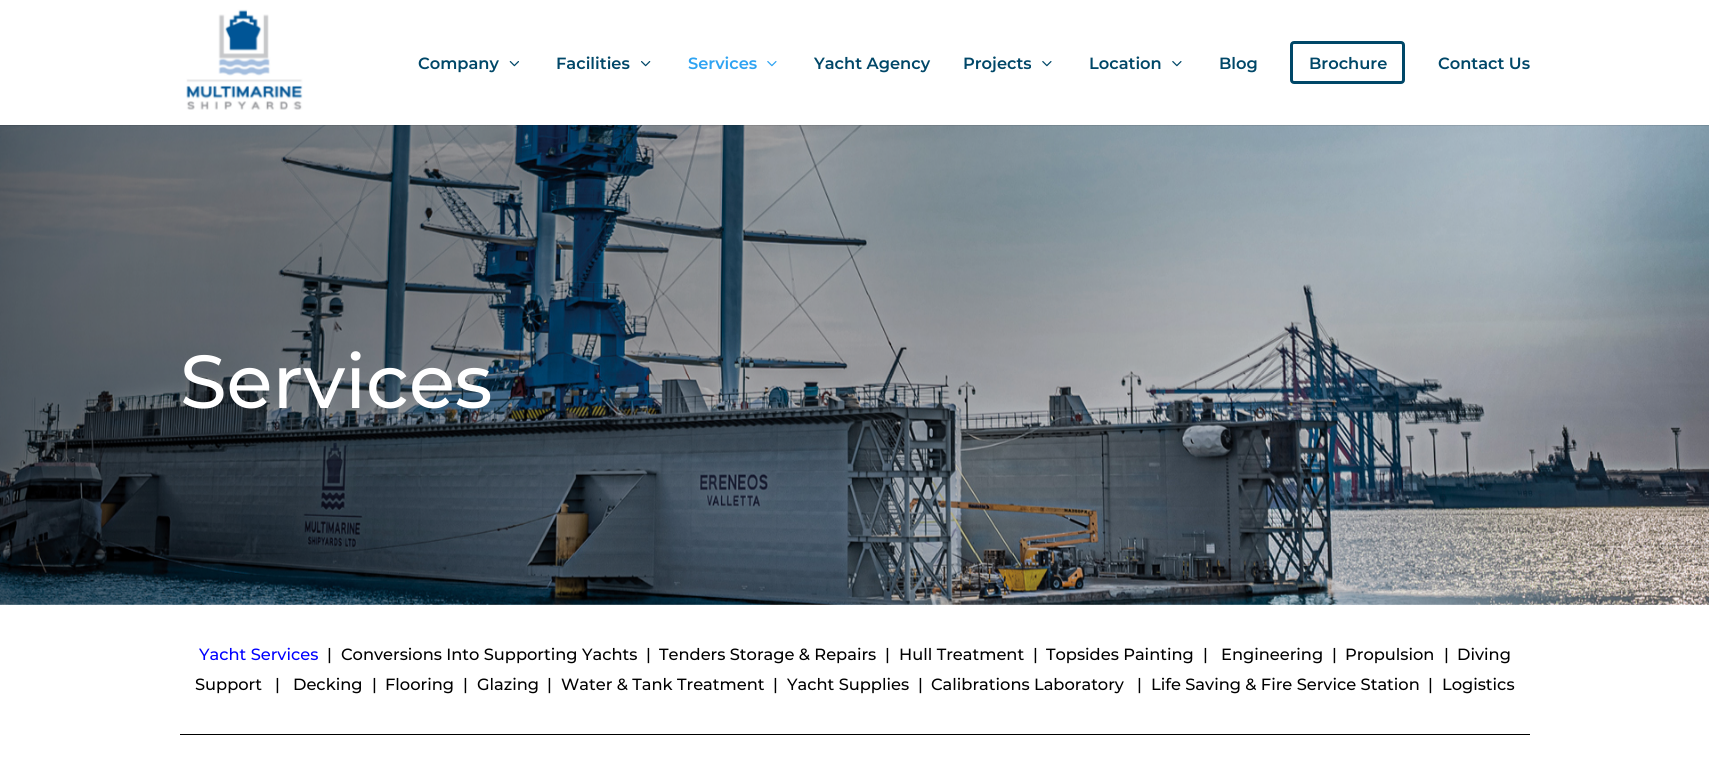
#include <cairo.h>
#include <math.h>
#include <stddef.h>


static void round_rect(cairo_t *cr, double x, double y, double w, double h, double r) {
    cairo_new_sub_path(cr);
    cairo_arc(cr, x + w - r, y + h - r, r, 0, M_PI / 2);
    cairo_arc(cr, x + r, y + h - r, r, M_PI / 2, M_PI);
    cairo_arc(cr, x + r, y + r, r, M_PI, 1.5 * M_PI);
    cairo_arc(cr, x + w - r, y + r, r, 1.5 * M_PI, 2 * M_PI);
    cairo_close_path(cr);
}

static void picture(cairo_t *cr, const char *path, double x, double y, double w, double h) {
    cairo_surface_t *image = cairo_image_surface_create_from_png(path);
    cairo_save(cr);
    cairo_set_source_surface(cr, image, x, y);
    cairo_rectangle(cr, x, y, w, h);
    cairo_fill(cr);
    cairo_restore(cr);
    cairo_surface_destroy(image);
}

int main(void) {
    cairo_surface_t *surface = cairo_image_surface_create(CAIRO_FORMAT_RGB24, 1709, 762);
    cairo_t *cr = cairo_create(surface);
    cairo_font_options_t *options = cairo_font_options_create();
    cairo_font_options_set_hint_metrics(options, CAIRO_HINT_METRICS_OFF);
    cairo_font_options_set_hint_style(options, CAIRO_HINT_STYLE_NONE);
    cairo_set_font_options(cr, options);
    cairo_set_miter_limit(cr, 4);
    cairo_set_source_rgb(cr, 1, 1, 1);
    cairo_paint(cr);
    picture(cr, "img6.png", 0, 125, 1709, 480);
    cairo_set_source_rgba(cr, 0, 0, 0, 0.1);
    cairo_rectangle(cr, 0, 125, 1709, 1);
    cairo_fill(cr);
    picture(cr, "img1.png", 186, 9, 117, 101);
    cairo_select_font_face(cr, "Montserrat SemiBold", CAIRO_FONT_SLANT_NORMAL, CAIRO_FONT_WEIGHT_NORMAL);
    cairo_set_font_size(cr, 16.25);
    cairo_set_source_rgb(cr, 0, 0.278, 0.408);
    cairo_move_to(cr, 418, 69);
    cairo_show_text(cr, "Company");
    picture(cr, "img2.png", 509, 61, 10, 6);
    cairo_move_to(cr, 556, 69);
    cairo_show_text(cr, "Facilities");
    picture(cr, "img3.png", 641, 61, 10, 6);
    cairo_set_source_rgb(cr, 0.18, 0.639, 0.949);
    cairo_move_to(cr, 688, 69);
    cairo_show_text(cr, "Services");
    picture(cr, "img4.png", 767, 61, 10, 6);
    cairo_set_source_rgb(cr, 0, 0.278, 0.408);
    cairo_move_to(cr, 814, 69);
    cairo_show_text(cr, "Yacht Agency");
    cairo_move_to(cr, 963, 69);
    cairo_show_text(cr, "Projects");
    picture(cr, "img5.png", 1042, 61, 10, 6);
    cairo_move_to(cr, 1089, 69);
    cairo_show_text(cr, "Location");
    picture(cr, "img5.png", 1172, 61, 10, 6);
    cairo_move_to(cr, 1219, 69);
    cairo_show_text(cr, "Blog");
    round_rect(cr, 1291.5, 42.5, 112, 40, 2.5);
    cairo_set_line_width(cr, 3);
    cairo_stroke(cr);
    cairo_move_to(cr, 1309, 69);
    cairo_show_text(cr, "Brochure");
    cairo_move_to(cr, 1438, 69);
    cairo_show_text(cr, "Contact Us");
    cairo_select_font_face(cr, "Montserrat Medium", CAIRO_FONT_SLANT_NORMAL, CAIRO_FONT_WEIGHT_NORMAL);
    cairo_set_font_size(cr, 75);
    cairo_set_source_rgb(cr, 1, 1, 1);
    cairo_move_to(cr, 180, 408);
    cairo_show_text(cr, "Services");
    cairo_set_font_size(cr, 16.25);
    cairo_set_source_rgb(cr, 0, 0, 1);
    cairo_move_to(cr, 199, 660);
    cairo_show_text(cr, "Yacht Services");
    cairo_set_source_rgb(cr, 0, 0, 0);
    cairo_move_to(cr, 327, 660);
    cairo_show_text(cr, "|");
    cairo_move_to(cr, 341, 660);
    cairo_show_text(cr, "Conversions Into Supporting Yachts");
    cairo_move_to(cr, 646, 660);
    cairo_show_text(cr, "|");
    cairo_move_to(cr, 659, 660);
    cairo_show_text(cr, "Tenders Storage & Repairs");
    cairo_move_to(cr, 885, 660);
    cairo_show_text(cr, "|");
    cairo_move_to(cr, 899, 660);
    cairo_show_text(cr, "Hull Treatment");
    cairo_move_to(cr, 1033, 660);
    cairo_show_text(cr, "|");
    cairo_move_to(cr, 1046, 660);
    cairo_show_text(cr, "Topsides Painting");
    cairo_move_to(cr, 1203, 660);
    cairo_show_text(cr, "|");
    cairo_move_to(cr, 1221, 660);
    cairo_show_text(cr, "Engineering");
    cairo_move_to(cr, 1332, 660);
    cairo_show_text(cr, "|");
    cairo_move_to(cr, 1345, 660);
    cairo_show_text(cr, "Propulsion");
    cairo_move_to(cr, 1444, 660);
    cairo_show_text(cr, "|");
    cairo_move_to(cr, 1457, 660);
    cairo_show_text(cr, "Diving");
    cairo_move_to(cr, 195, 690);
    cairo_show_text(cr, "Support");
    cairo_move_to(cr, 275, 690);
    cairo_show_text(cr, "|");
    cairo_move_to(cr, 293, 690);
    cairo_show_text(cr, "Decking");
    cairo_move_to(cr, 372, 690);
    cairo_show_text(cr, "|");
    cairo_move_to(cr, 385, 690);
    cairo_show_text(cr, "Flooring");
    cairo_move_to(cr, 463, 690);
    cairo_show_text(cr, "|");
    cairo_move_to(cr, 477, 690);
    cairo_show_text(cr, "Glazing");
    cairo_move_to(cr, 547, 690);
    cairo_show_text(cr, "|");
    cairo_move_to(cr, 561, 690);
    cairo_show_text(cr, "Water & Tank Treatment");
    cairo_move_to(cr, 773, 690);
    cairo_show_text(cr, "|");
    cairo_move_to(cr, 787, 690);
    cairo_show_text(cr, "Yacht Supplies");
    cairo_move_to(cr, 918, 690);
    cairo_show_text(cr, "|");
    cairo_move_to(cr, 931, 690);
    cairo_show_text(cr, "Calibrations Laboratory");
    cairo_move_to(cr, 1137, 690);
    cairo_show_text(cr, "|");
    cairo_move_to(cr, 1151, 690);
    cairo_show_text(cr, "Life Saving & Fire Service Station");
    cairo_move_to(cr, 1428, 690);
    cairo_show_text(cr, "|");
    cairo_move_to(cr, 1442, 690);
    cairo_show_text(cr, "Logistics");
    cairo_rectangle(cr, 180, 734, 1350, 1);
    cairo_fill(cr);
    cairo_surface_write_to_png(surface, "page.png");
    cairo_font_options_destroy(options);
    cairo_destroy(cr);
    cairo_surface_destroy(surface);
    return 0;
}
